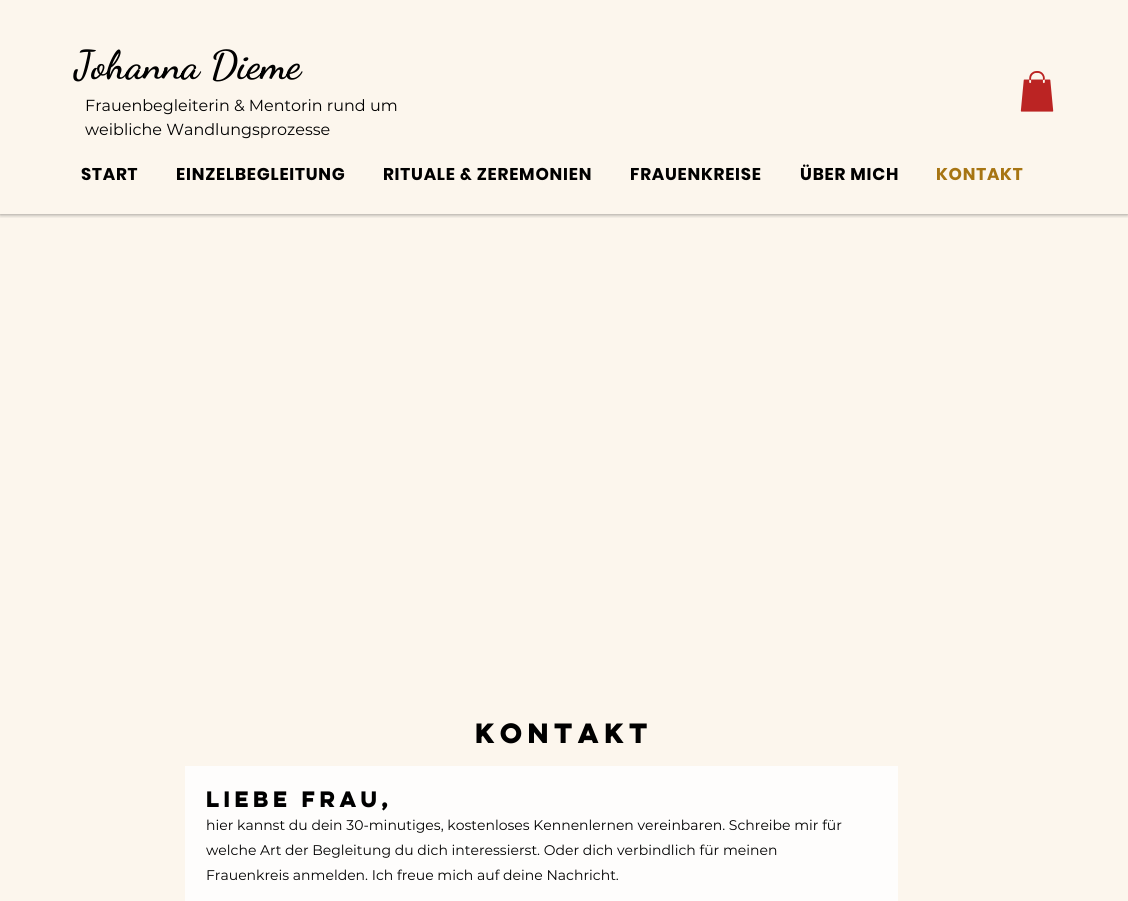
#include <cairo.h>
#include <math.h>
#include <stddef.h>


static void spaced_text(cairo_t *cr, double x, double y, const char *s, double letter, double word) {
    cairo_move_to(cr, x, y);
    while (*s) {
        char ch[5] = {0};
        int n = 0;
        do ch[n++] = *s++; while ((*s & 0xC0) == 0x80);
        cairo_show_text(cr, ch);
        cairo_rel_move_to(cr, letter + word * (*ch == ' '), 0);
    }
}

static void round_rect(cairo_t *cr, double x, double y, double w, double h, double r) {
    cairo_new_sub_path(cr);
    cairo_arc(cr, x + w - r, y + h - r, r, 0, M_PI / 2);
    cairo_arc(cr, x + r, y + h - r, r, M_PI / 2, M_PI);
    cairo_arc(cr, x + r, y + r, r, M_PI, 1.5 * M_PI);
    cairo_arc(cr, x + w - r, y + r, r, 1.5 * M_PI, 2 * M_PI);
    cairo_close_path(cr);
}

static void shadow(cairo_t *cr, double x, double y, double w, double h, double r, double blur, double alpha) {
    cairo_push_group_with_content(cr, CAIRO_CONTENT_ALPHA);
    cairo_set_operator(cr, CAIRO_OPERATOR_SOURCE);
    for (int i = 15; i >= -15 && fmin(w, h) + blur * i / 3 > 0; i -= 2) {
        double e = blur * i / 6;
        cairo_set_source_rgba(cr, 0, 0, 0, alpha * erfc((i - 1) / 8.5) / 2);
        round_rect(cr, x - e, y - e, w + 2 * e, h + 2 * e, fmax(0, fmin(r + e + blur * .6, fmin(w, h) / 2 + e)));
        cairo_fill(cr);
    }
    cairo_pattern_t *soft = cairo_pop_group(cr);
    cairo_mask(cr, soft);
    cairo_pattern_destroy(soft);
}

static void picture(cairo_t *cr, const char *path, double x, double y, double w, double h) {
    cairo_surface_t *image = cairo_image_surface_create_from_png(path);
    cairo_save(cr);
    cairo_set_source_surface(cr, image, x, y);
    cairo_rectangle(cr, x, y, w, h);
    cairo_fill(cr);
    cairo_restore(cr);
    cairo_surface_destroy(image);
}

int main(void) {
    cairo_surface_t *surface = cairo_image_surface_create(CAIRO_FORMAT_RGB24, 1128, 901);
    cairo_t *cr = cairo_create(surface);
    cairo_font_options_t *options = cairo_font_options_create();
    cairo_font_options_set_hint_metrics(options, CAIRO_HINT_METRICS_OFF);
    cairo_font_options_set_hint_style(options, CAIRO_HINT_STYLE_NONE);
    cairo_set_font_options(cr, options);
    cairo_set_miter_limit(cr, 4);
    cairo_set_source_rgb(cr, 0.988, 0.961, 0.929);
    cairo_paint(cr);
    cairo_save(cr);
    cairo_rectangle(cr, 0, 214, 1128, 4);
    cairo_clip(cr);
    cairo_set_source_rgb(cr, 0, 0, 0);
    shadow(cr, 0, 0, 1128, 214, 0, 2.5, 0.5);
    cairo_restore(cr);
    cairo_select_font_face(cr, "Dancing Script", CAIRO_FONT_SLANT_NORMAL, CAIRO_FONT_WEIGHT_BOLD);
    cairo_set_font_size(cr, 40);
    cairo_set_source_rgb(cr, 0, 0, 0);
    cairo_move_to(cr, 74, 78);
    cairo_show_text(cr, "Johanna Dieme");
    picture(cr, "img1.png", 1020, 71, 34, 41);
    cairo_select_font_face(cr, "Montserrat", CAIRO_FONT_SLANT_NORMAL, CAIRO_FONT_WEIGHT_NORMAL);
    cairo_set_font_size(cr, 16);
    cairo_move_to(cr, 85, 111);
    cairo_show_text(cr, "Frauenbegleiterin & Mentorin rund um");
    cairo_move_to(cr, 85, 135);
    cairo_show_text(cr, "weibliche Wandlungsprozesse");
    cairo_select_font_face(cr, "Poppins", CAIRO_FONT_SLANT_NORMAL, CAIRO_FONT_WEIGHT_BOLD);
    cairo_set_font_size(cr, 17);
    spaced_text(cr, 81, 180, "START", 0.8, 0);
    spaced_text(cr, 176, 180, "EINZELBEGLEITUNG", 0.8, 0);
    spaced_text(cr, 383, 180, "RITUALE & ZEREMONIEN", 0.8, 0);
    spaced_text(cr, 630, 180, "FRAUENKREISE", 0.8, 0);
    spaced_text(cr, 800, 180, "ÜBER MICH", 0.8, 0);
    cairo_set_source_rgb(cr, 0.655, 0.459, 0.075);
    spaced_text(cr, 936, 180, "KONTAKT", 0.8, 0);
    cairo_select_font_face(cr, "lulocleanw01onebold", CAIRO_FONT_SLANT_NORMAL, CAIRO_FONT_WEIGHT_BOLD);
    cairo_set_font_size(cr, 25);
    cairo_set_source_rgb(cr, 0, 0, 0);
    cairo_move_to(cr, 475, 743);
    cairo_show_text(cr, "Kontakt");
    cairo_set_source_rgb(cr, 0.996, 0.992, 0.988);
    cairo_rectangle(cr, 185, 766, 713, 135);
    cairo_fill(cr);
    cairo_set_font_size(cr, 20);
    cairo_set_source_rgb(cr, 0, 0, 0);
    cairo_move_to(cr, 206, 807);
    cairo_show_text(cr, "Liebe Frau,");
    cairo_select_font_face(cr, "Montserrat", CAIRO_FONT_SLANT_NORMAL, CAIRO_FONT_WEIGHT_NORMAL);
    cairo_set_font_size(cr, 14);
    cairo_move_to(cr, 206, 830);
    cairo_show_text(cr, "hier kannst du dein 30-minutiges, kostenloses Kennenlernen vereinbaren. Schreibe mir für");
    cairo_move_to(cr, 206, 855);
    cairo_show_text(cr, "welche Art der Begleitung du dich interessierst. Oder dich verbindlich für meinen");
    cairo_move_to(cr, 206, 880);
    cairo_show_text(cr, "Frauenkreis anmelden. Ich freue mich auf deine Nachricht.");
    cairo_surface_write_to_png(surface, "page.png");
    cairo_font_options_destroy(options);
    cairo_destroy(cr);
    cairo_surface_destroy(surface);
    return 0;
}
